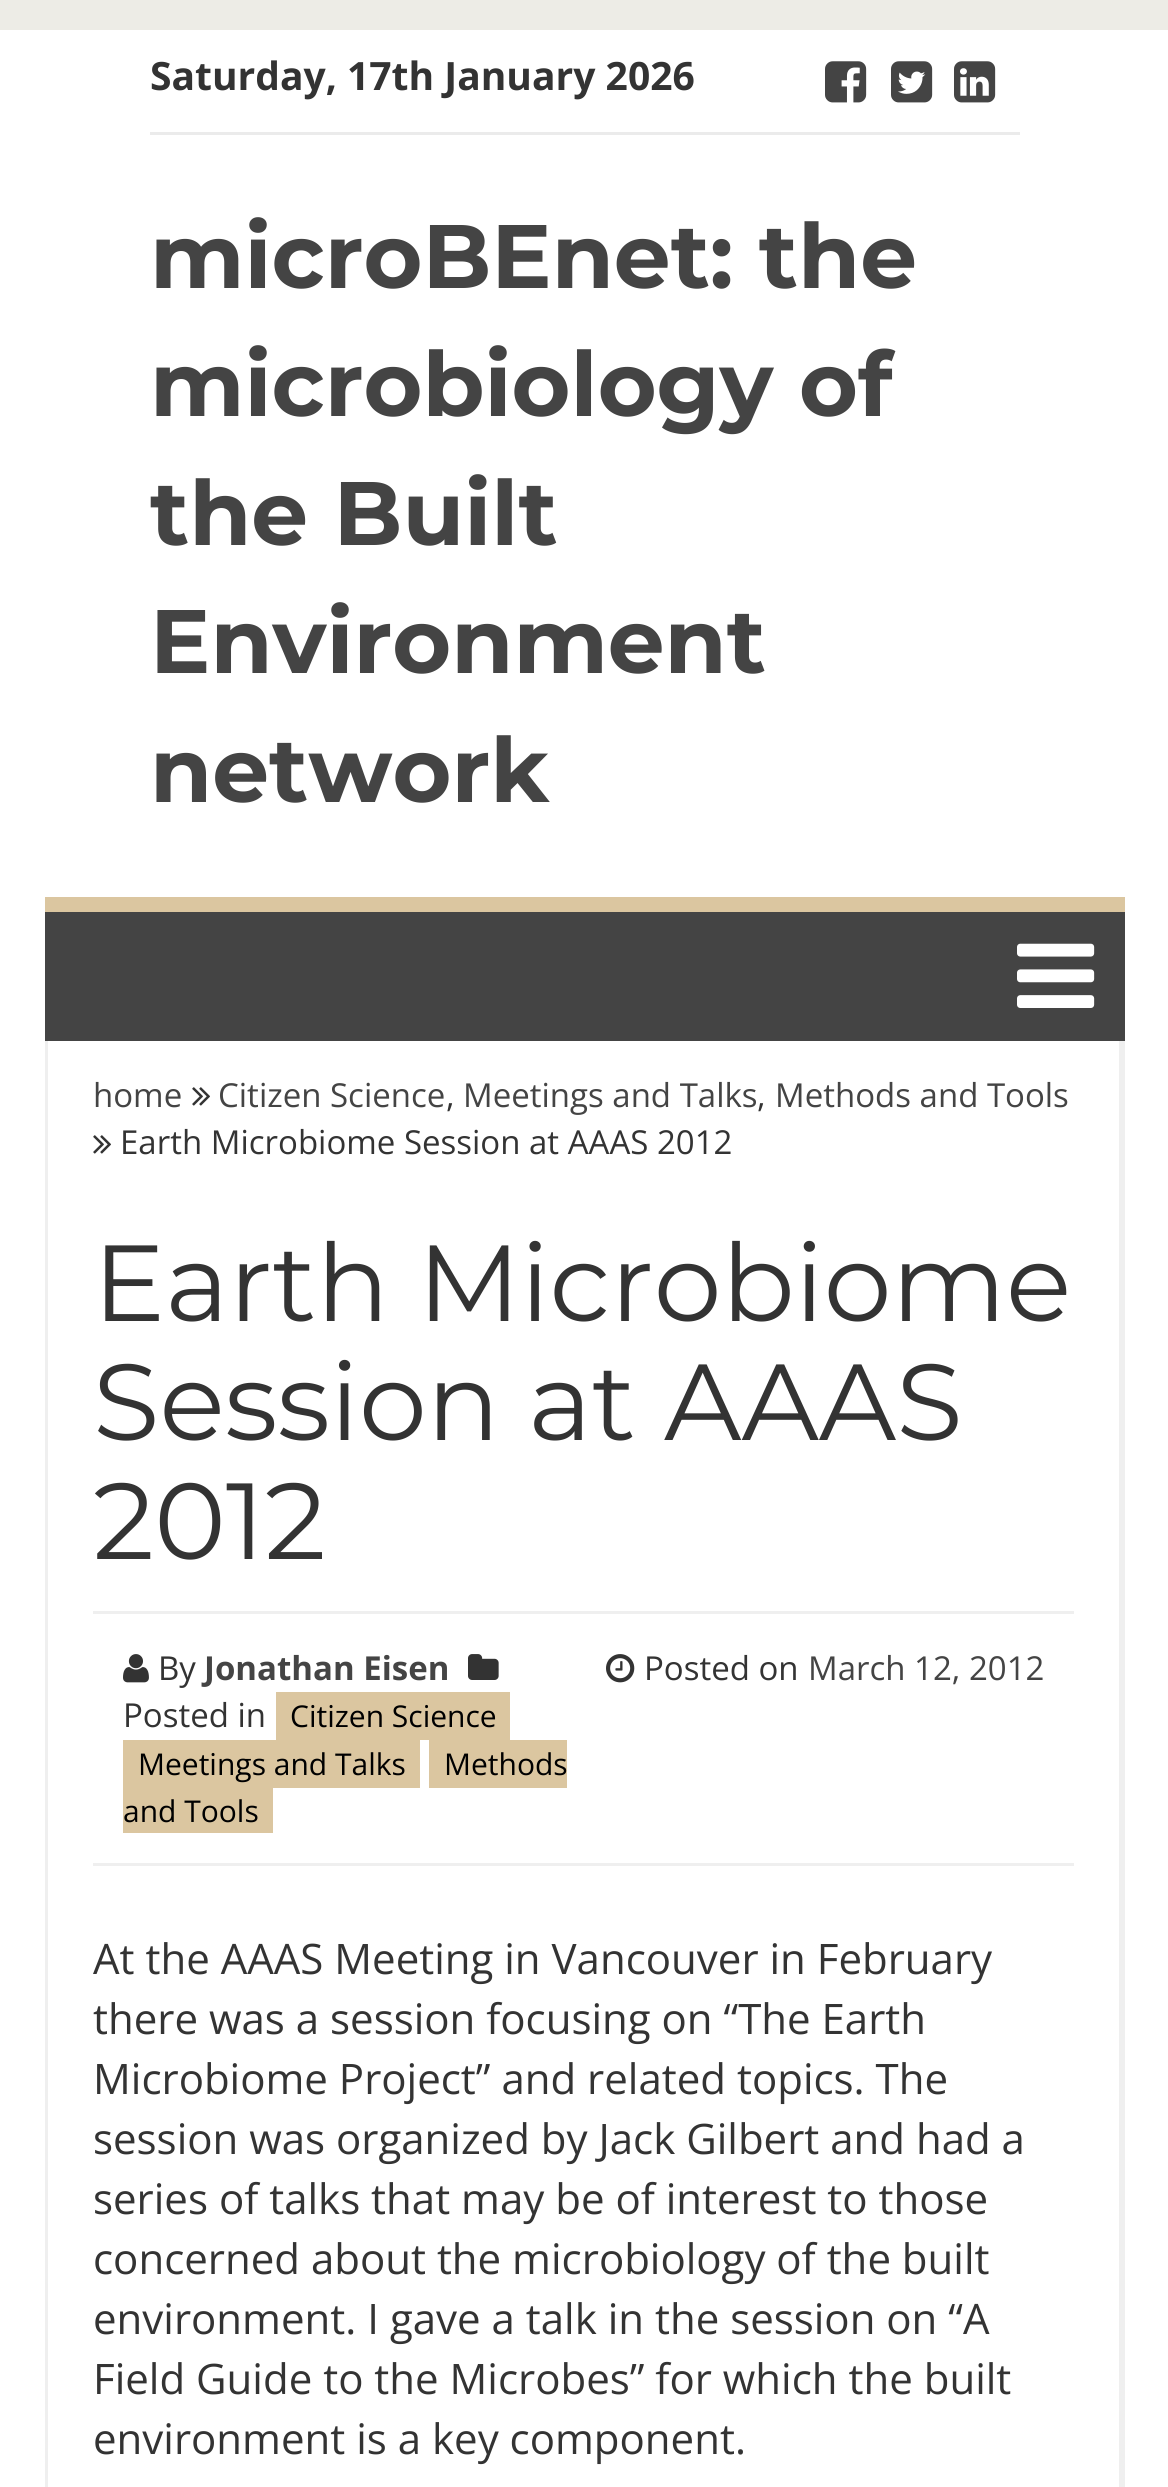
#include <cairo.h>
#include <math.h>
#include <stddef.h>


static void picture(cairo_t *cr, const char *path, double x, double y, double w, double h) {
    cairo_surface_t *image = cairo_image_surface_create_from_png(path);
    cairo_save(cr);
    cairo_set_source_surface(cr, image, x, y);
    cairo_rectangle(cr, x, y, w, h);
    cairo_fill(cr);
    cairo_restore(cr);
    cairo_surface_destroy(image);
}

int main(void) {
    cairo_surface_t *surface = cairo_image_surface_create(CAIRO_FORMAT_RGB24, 1168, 2487);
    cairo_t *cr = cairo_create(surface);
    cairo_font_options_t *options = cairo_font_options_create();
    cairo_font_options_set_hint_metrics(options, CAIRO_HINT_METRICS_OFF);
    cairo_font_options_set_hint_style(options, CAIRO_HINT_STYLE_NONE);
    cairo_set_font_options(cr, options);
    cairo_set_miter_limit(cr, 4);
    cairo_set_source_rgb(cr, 0.929, 0.922, 0.902);
    cairo_paint(cr);
    cairo_set_source_rgb(cr, 1, 1, 1);
    cairo_rectangle(cr, 0, 30, 1168, 2457);
    cairo_fill(cr);
    cairo_set_source_rgb(cr, 0.918, 0.918, 0.918);
    cairo_rectangle(cr, 150, 132, 870, 3);
    cairo_fill(cr);
    cairo_select_font_face(cr, "Open Sans", CAIRO_FONT_SLANT_NORMAL, CAIRO_FONT_WEIGHT_BOLD);
    cairo_set_font_size(cr, 39);
    cairo_set_source_rgb(cr, 0.2, 0.2, 0.2);
    cairo_move_to(cr, 150, 90);
    cairo_show_text(cr, "Saturday, 17th January 2026");
    picture(cr, "img1.png", 825, 61, 42, 42);
    picture(cr, "img2.png", 891, 61, 42, 42);
    picture(cr, "img3.png", 954, 61, 42, 42);
    cairo_select_font_face(cr, "Montserrat", CAIRO_FONT_SLANT_NORMAL, CAIRO_FONT_WEIGHT_BOLD);
    cairo_set_font_size(cr, 90);
    cairo_set_source_rgb(cr, 0.267, 0.267, 0.267);
    cairo_move_to(cr, 150, 288);
    cairo_show_text(cr, "microBEnet: the");
    cairo_move_to(cr, 150, 416);
    cairo_show_text(cr, "microbiology of");
    cairo_move_to(cr, 150, 545);
    cairo_show_text(cr, "the Built");
    cairo_move_to(cr, 150, 673);
    cairo_show_text(cr, "Environment");
    cairo_move_to(cr, 150, 802);
    cairo_show_text(cr, "network");
    cairo_rectangle(cr, 45, 912, 1080, 129);
    cairo_fill(cr);
    cairo_set_source_rgb(cr, 0.859, 0.776, 0.627);
    cairo_rectangle(cr, 45, 897, 1080, 15);
    cairo_fill(cr);
    picture(cr, "img4.png", 1017, 943, 78, 65);
    cairo_set_source_rgb(cr, 0.937, 0.937, 0.937);
    cairo_rectangle(cr, 1119, 1041, 6, 1446);
    cairo_fill(cr);
    cairo_rectangle(cr, 45, 1041, 3, 1446);
    cairo_fill(cr);
    cairo_select_font_face(cr, "Open Sans", CAIRO_FONT_SLANT_NORMAL, CAIRO_FONT_WEIGHT_NORMAL);
    cairo_set_font_size(cr, 33);
    cairo_set_source_rgb(cr, 0.267, 0.267, 0.267);
    cairo_move_to(cr, 93, 1107);
    cairo_show_text(cr, "home");
    picture(cr, "img5.png", 192, 1087, 18, 19);
    cairo_move_to(cr, 218, 1107);
    cairo_show_text(cr, "Citizen Science");
    cairo_move_to(cr, 463, 1107);
    cairo_show_text(cr, "Meetings and Talks");
    cairo_move_to(cr, 775, 1107);
    cairo_show_text(cr, "Methods and Tools");
    cairo_set_source_rgb(cr, 0.2, 0.2, 0.2);
    cairo_move_to(cr, 446, 1107);
    cairo_show_text(cr, ",");
    cairo_move_to(cr, 757, 1107);
    cairo_show_text(cr, ",");
    picture(cr, "img5.png", 93, 1135, 18, 19);
    cairo_move_to(cr, 120, 1154);
    cairo_show_text(cr, "Earth Microbiome Session at AAAS 2012");
    cairo_select_font_face(cr, "Montserrat", CAIRO_FONT_SLANT_NORMAL, CAIRO_FONT_WEIGHT_NORMAL);
    cairo_set_font_size(cr, 108);
    cairo_move_to(cr, 93, 1321);
    cairo_show_text(cr, "Earth Microbiome");
    cairo_move_to(cr, 93, 1440);
    cairo_show_text(cr, "Session at AAAS");
    cairo_move_to(cr, 93, 1559);
    cairo_show_text(cr, "2012");
    cairo_set_source_rgb(cr, 0.937, 0.937, 0.937);
    cairo_rectangle(cr, 93, 1611, 981, 3);
    cairo_fill(cr);
    cairo_rectangle(cr, 93, 1863, 981, 3);
    cairo_fill(cr);
    picture(cr, "img6.png", 123, 1654, 26, 29);
    cairo_select_font_face(cr, "Open Sans", CAIRO_FONT_SLANT_NORMAL, CAIRO_FONT_WEIGHT_NORMAL);
    cairo_set_font_size(cr, 33);
    cairo_set_source_rgb(cr, 0.2, 0.2, 0.2);
    cairo_move_to(cr, 158, 1680);
    cairo_show_text(cr, "By");
    cairo_select_font_face(cr, "Open Sans", CAIRO_FONT_SLANT_NORMAL, CAIRO_FONT_WEIGHT_BOLD);
    cairo_set_source_rgb(cr, 0.267, 0.267, 0.267);
    cairo_move_to(cr, 204, 1680);
    cairo_show_text(cr, "Jonathan Eisen");
    picture(cr, "img7.png", 468, 1654, 31, 26);
    cairo_select_font_face(cr, "Open Sans", CAIRO_FONT_SLANT_NORMAL, CAIRO_FONT_WEIGHT_NORMAL);
    cairo_set_source_rgb(cr, 0.2, 0.2, 0.2);
    cairo_move_to(cr, 123, 1727);
    cairo_show_text(cr, "Posted in");
    cairo_set_source_rgb(cr, 0.859, 0.776, 0.627);
    cairo_rectangle(cr, 276, 1692, 234, 48);
    cairo_fill(cr);
    cairo_set_font_size(cr, 30);
    cairo_set_source_rgb(cr, 0, 0, 0);
    cairo_move_to(cr, 290, 1727);
    cairo_show_text(cr, "Citizen Science");
    cairo_set_source_rgb(cr, 0.859, 0.776, 0.627);
    cairo_rectangle(cr, 123, 1740, 297, 48);
    cairo_fill(cr);
    cairo_set_source_rgb(cr, 0, 0, 0);
    cairo_move_to(cr, 138, 1775);
    cairo_show_text(cr, "Meetings and Talks");
    cairo_set_source_rgb(cr, 0.859, 0.776, 0.627);
    cairo_rectangle(cr, 429, 1740, 138, 48);
    cairo_fill(cr);
    cairo_set_source_rgb(cr, 0, 0, 0);
    cairo_move_to(cr, 444, 1775);
    cairo_show_text(cr, "Methods");
    cairo_set_source_rgb(cr, 0.859, 0.776, 0.627);
    cairo_rectangle(cr, 123, 1788, 150, 45);
    cairo_fill(cr);
    cairo_set_source_rgb(cr, 0, 0, 0);
    cairo_move_to(cr, 123, 1822);
    cairo_show_text(cr, "and Tools");
    picture(cr, "img8.png", 606, 1654, 29, 29);
    cairo_set_font_size(cr, 33);
    cairo_set_source_rgb(cr, 0.2, 0.2, 0.2);
    cairo_move_to(cr, 644, 1680);
    cairo_show_text(cr, "Posted on");
    cairo_set_source_rgb(cr, 0.267, 0.267, 0.267);
    cairo_move_to(cr, 808, 1680);
    cairo_show_text(cr, "March 12, 2012");
    cairo_set_font_size(cr, 42);
    cairo_set_source_rgb(cr, 0.2, 0.2, 0.2);
    cairo_move_to(cr, 93, 1974);
    cairo_show_text(cr, "At the AAAS Meeting in Vancouver in February");
    cairo_move_to(cr, 93, 2034);
    cairo_show_text(cr, "there was a session focusing on “The Earth");
    cairo_move_to(cr, 93, 2094);
    cairo_show_text(cr, "Microbiome Project” and related topics. The");
    cairo_move_to(cr, 93, 2154);
    cairo_show_text(cr, "session was organized by Jack Gilbert and had a");
    cairo_move_to(cr, 93, 2214);
    cairo_show_text(cr, "series of talks that may be of interest to those");
    cairo_move_to(cr, 93, 2274);
    cairo_show_text(cr, "concerned about the microbiology of the built");
    cairo_move_to(cr, 93, 2334);
    cairo_show_text(cr, "environment. I gave a talk in the session on “A");
    cairo_move_to(cr, 93, 2394);
    cairo_show_text(cr, "Field Guide to the Microbes” for which the built");
    cairo_move_to(cr, 93, 2454);
    cairo_show_text(cr, "environment is a key component.");
    cairo_surface_write_to_png(surface, "page.png");
    cairo_font_options_destroy(options);
    cairo_destroy(cr);
    cairo_surface_destroy(surface);
    return 0;
}
